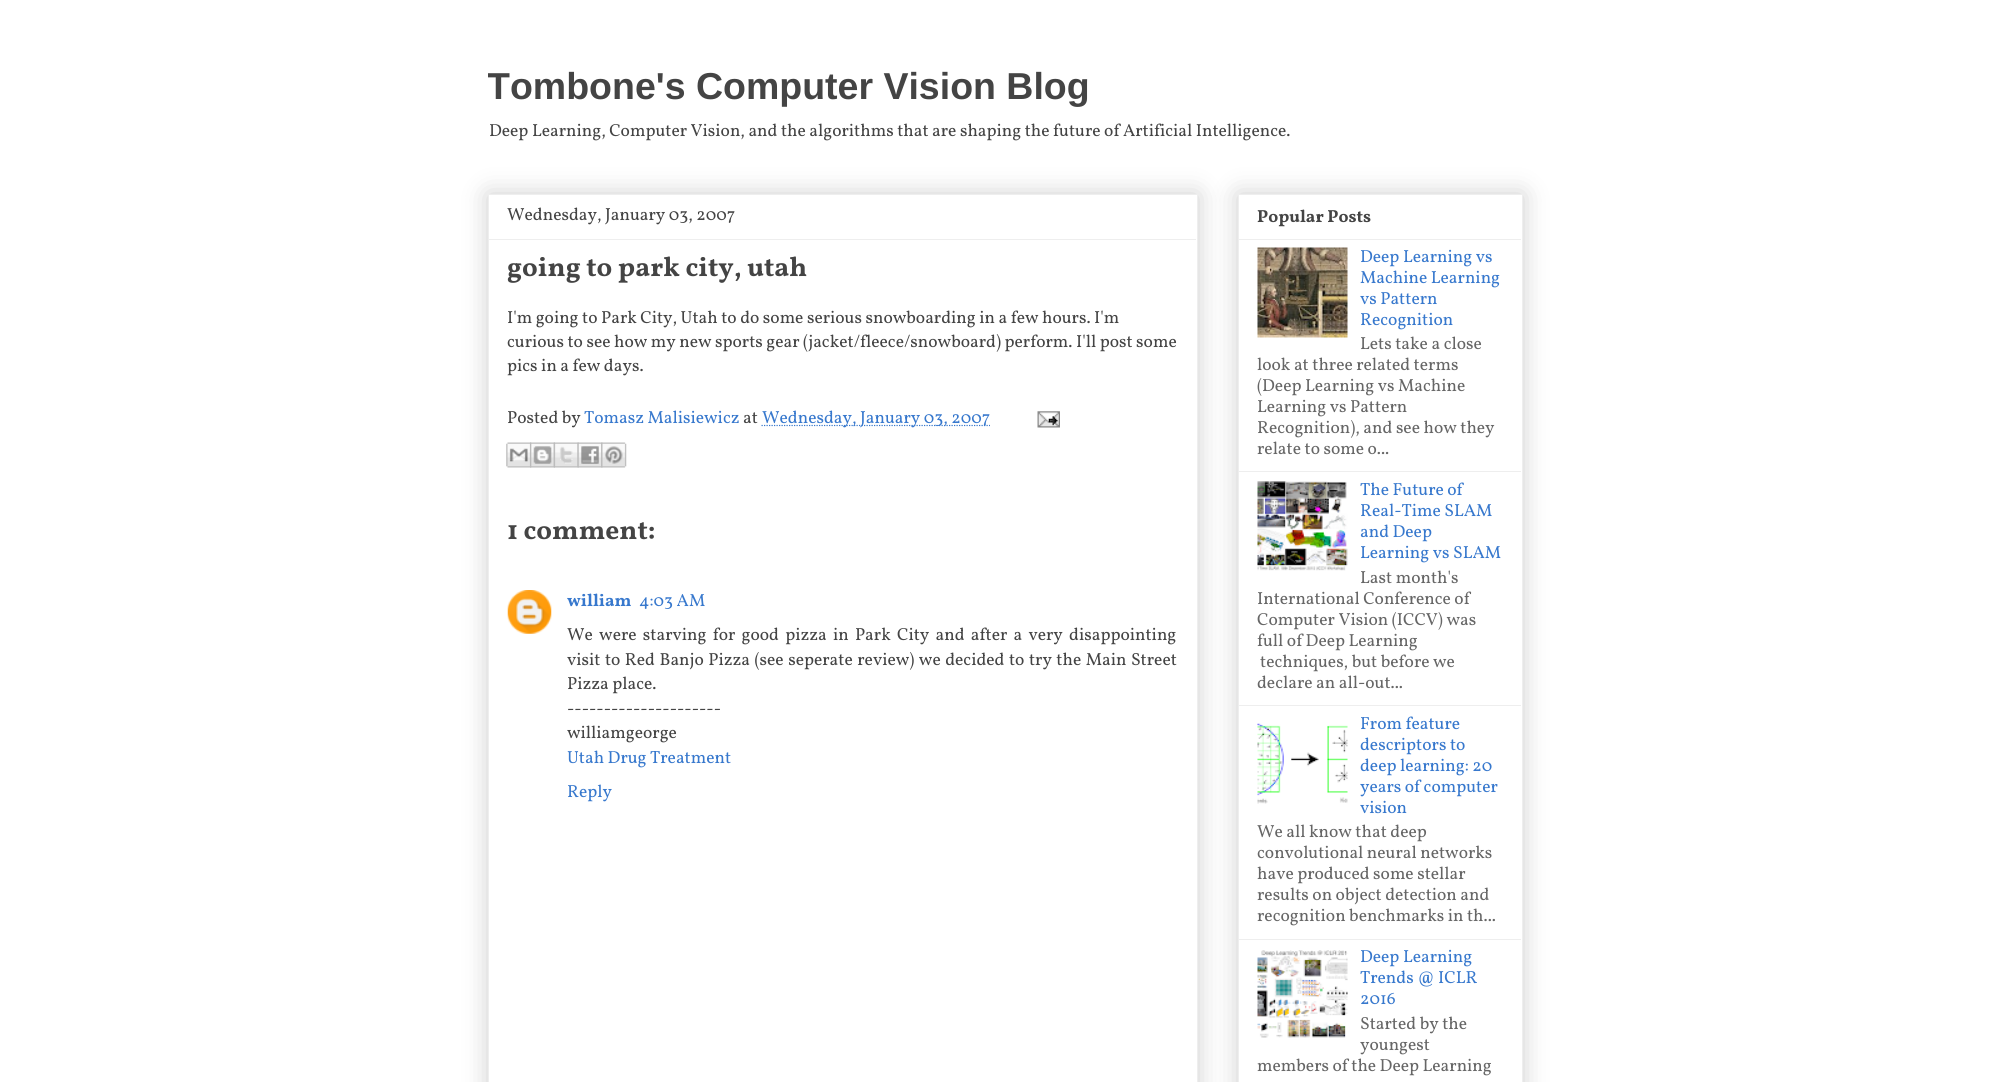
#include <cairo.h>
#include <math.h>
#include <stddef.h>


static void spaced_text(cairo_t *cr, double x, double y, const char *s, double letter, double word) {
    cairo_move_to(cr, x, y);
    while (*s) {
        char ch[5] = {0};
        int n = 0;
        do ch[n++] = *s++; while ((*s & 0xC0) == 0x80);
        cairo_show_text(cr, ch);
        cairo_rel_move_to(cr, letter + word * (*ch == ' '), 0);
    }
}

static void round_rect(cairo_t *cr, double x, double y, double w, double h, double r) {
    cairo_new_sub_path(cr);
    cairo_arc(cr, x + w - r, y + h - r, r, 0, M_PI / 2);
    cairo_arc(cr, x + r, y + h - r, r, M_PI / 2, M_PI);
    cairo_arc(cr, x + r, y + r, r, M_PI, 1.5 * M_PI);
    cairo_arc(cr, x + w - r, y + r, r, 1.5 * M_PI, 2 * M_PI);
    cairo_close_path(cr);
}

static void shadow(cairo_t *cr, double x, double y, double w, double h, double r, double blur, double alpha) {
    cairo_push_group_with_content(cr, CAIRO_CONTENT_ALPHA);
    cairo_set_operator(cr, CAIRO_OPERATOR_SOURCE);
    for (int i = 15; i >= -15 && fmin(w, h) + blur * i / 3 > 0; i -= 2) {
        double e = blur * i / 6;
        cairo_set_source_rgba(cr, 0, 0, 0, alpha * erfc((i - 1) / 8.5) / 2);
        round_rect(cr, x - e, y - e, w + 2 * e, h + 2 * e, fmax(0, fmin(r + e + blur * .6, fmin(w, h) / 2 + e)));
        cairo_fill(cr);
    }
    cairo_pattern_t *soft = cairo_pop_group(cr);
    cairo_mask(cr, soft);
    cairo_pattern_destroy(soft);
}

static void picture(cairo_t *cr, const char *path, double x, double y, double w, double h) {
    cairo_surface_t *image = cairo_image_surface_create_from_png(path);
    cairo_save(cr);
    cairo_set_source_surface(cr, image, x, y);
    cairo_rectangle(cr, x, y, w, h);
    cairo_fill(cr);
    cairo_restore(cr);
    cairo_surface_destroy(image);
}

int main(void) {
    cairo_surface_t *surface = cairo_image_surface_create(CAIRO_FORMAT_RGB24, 2008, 1082);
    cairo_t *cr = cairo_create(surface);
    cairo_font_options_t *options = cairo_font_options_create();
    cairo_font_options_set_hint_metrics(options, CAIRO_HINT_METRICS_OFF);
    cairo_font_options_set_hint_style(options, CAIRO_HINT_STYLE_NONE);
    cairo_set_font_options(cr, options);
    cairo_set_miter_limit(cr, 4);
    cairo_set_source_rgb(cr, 1, 1, 1);
    cairo_paint(cr);
    cairo_save(cr);
    cairo_rectangle(cr, 488, 38, 1035, 118);
    cairo_clip(cr);
    cairo_select_font_face(cr, "Liberation Sans", CAIRO_FONT_SLANT_NORMAL, CAIRO_FONT_WEIGHT_BOLD);
    cairo_set_font_size(cr, 37.5);
    cairo_set_source_rgb(cr, 0.267, 0.267, 0.267);
    cairo_move_to(cr, 487, 99);
    cairo_show_text(cr, "Tombone's Computer Vision Blog");
    cairo_restore(cr);
    cairo_select_font_face(cr, "Vollkorn", CAIRO_FONT_SLANT_NORMAL, CAIRO_FONT_WEIGHT_NORMAL);
    cairo_set_font_size(cr, 17.5);
    cairo_set_source_rgb(cr, 0.267, 0.267, 0.267);
    cairo_move_to(cr, 489, 136);
    cairo_show_text(cr, "Deep Learning, Computer Vision, and the algorithms that are shaping the future of Artificial Intelligence.");
    cairo_set_source_rgb(cr, 0, 0, 0);
    shadow(cr, 488, 194, 710, 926, 0, 12.5, 0.2);
    cairo_set_source_rgb(cr, 1, 1, 1);
    cairo_rectangle(cr, 488.5, 194.5, 709, 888);
    cairo_fill_preserve(cr);
    cairo_set_source_rgb(cr, 0.933, 0.933, 0.933);
    cairo_set_line_width(cr, 1);
    cairo_stroke(cr);
    cairo_set_source_rgb(cr, 0.267, 0.267, 0.267);
    cairo_move_to(cr, 507, 220);
    cairo_show_text(cr, "Wednesday, January 03, 2007");
    cairo_set_source_rgb(cr, 0.933, 0.933, 0.933);
    cairo_rectangle(cr, 489, 239, 707, 1);
    cairo_fill(cr);
    cairo_select_font_face(cr, "Vollkorn", CAIRO_FONT_SLANT_NORMAL, CAIRO_FONT_WEIGHT_BOLD);
    cairo_set_font_size(cr, 27.5);
    cairo_set_source_rgb(cr, 0.267, 0.267, 0.267);
    cairo_move_to(cr, 507, 276);
    cairo_show_text(cr, "going to park city, utah");
    cairo_select_font_face(cr, "Vollkorn", CAIRO_FONT_SLANT_NORMAL, CAIRO_FONT_WEIGHT_NORMAL);
    cairo_set_font_size(cr, 17.5);
    cairo_move_to(cr, 507, 323);
    cairo_show_text(cr, "I'm going to Park City, Utah to do some serious snowboarding in a few hours. I'm");
    cairo_move_to(cr, 507, 347);
    cairo_show_text(cr, "curious to see how my new sports gear (jacket/fleece/snowboard) perform.");
    cairo_move_to(cr, 1076, 347);
    cairo_show_text(cr, "I'll post some");
    cairo_move_to(cr, 507, 371);
    cairo_show_text(cr, "pics in a few days.");
    cairo_move_to(cr, 507, 423);
    cairo_show_text(cr, "Posted by");
    cairo_set_source_rgb(cr, 0.216, 0.471, 0.804);
    cairo_move_to(cr, 584, 423);
    cairo_show_text(cr, "Tomasz Malisiewicz");
    cairo_set_source_rgb(cr, 0.267, 0.267, 0.267);
    cairo_move_to(cr, 743, 423);
    cairo_show_text(cr, "at");
    cairo_new_path(cr);
    cairo_move_to(cr, 761.5, 425.5);
    cairo_line_to(cr, 990, 425.5);
    cairo_set_source_rgb(cr, 0.216, 0.471, 0.804);
    cairo_set_line_width(cr, 1.2);
    cairo_set_dash(cr, (double[]){1.25, 1.25}, 2, 0);
    cairo_stroke(cr);
    cairo_move_to(cr, 762, 423);
    cairo_show_text(cr, "Wednesday, January 03, 2007");
    picture(cr, "img1.png", 1037, 411, 23, 17);
    picture(cr, "img2.png", 506, 442, 26, 26);
    picture(cr, "img3.png", 530, 442, 25, 26);
    picture(cr, "img4.png", 553, 442, 26, 26);
    picture(cr, "img5.png", 577, 442, 26, 26);
    picture(cr, "img6.png", 601, 442, 26, 26);
    cairo_select_font_face(cr, "Vollkorn", CAIRO_FONT_SLANT_NORMAL, CAIRO_FONT_WEIGHT_BOLD);
    cairo_set_font_size(cr, 27.5);
    cairo_set_source_rgb(cr, 0.267, 0.267, 0.267);
    cairo_move_to(cr, 507, 539);
    cairo_show_text(cr, "1 comment:");
    picture(cr, "img7.png", 507, 590, 45, 44);
    cairo_set_font_size(cr, 17.5);
    cairo_set_source_rgb(cr, 0.216, 0.471, 0.804);
    cairo_move_to(cr, 567, 606);
    cairo_show_text(cr, "william");
    cairo_select_font_face(cr, "Vollkorn", CAIRO_FONT_SLANT_NORMAL, CAIRO_FONT_WEIGHT_NORMAL);
    cairo_move_to(cr, 639, 606);
    cairo_show_text(cr, "4:03 AM");
    cairo_set_source_rgb(cr, 0.267, 0.267, 0.267);
    spaced_text(cr, 567, 640, "We were starving for good pizza in Park City and after a very disappointing", 0, 2.75);
    spaced_text(cr, 567, 665, "visit to Red Banjo Pizza (see seperate review) we decided to try the Main Street", 0, 1);
    cairo_move_to(cr, 567, 689);
    cairo_show_text(cr, "Pizza place.");
    cairo_move_to(cr, 567, 714);
    cairo_show_text(cr, "---------------------");
    cairo_move_to(cr, 567, 738);
    cairo_show_text(cr, "williamgeorge");
    cairo_set_source_rgb(cr, 0.216, 0.471, 0.804);
    cairo_move_to(cr, 567, 763);
    cairo_show_text(cr, "Utah Drug Treatment");
    cairo_move_to(cr, 567, 797);
    cairo_show_text(cr, "Reply");
    cairo_set_source_rgb(cr, 0, 0, 0);
    shadow(cr, 1238, 194, 285, 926, 0, 12.5, 0.2);
    cairo_set_source_rgb(cr, 1, 1, 1);
    cairo_rectangle(cr, 1238.5, 194.5, 284, 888);
    cairo_fill_preserve(cr);
    cairo_set_source_rgb(cr, 0.933, 0.933, 0.933);
    cairo_set_line_width(cr, 1);
    cairo_set_dash(cr, NULL, 0, 0);
    cairo_stroke(cr);
    cairo_select_font_face(cr, "Vollkorn", CAIRO_FONT_SLANT_NORMAL, CAIRO_FONT_WEIGHT_BOLD);
    cairo_set_source_rgb(cr, 0.267, 0.267, 0.267);
    cairo_move_to(cr, 1257, 222);
    cairo_show_text(cr, "Popular Posts");
    cairo_set_source_rgb(cr, 0.933, 0.933, 0.933);
    cairo_rectangle(cr, 1239, 239, 282, 1);
    cairo_fill(cr);
    picture(cr, "img8.png", 1257, 247, 91, 91);
    cairo_select_font_face(cr, "Vollkorn", CAIRO_FONT_SLANT_NORMAL, CAIRO_FONT_WEIGHT_NORMAL);
    cairo_set_source_rgb(cr, 0.216, 0.471, 0.804);
    cairo_move_to(cr, 1360, 262);
    cairo_show_text(cr, "Deep Learning vs");
    cairo_move_to(cr, 1360, 283);
    cairo_show_text(cr, "Machine Learning");
    cairo_move_to(cr, 1360, 304);
    cairo_show_text(cr, "vs Pattern");
    cairo_move_to(cr, 1360, 325);
    cairo_show_text(cr, "Recognition");
    cairo_set_source_rgb(cr, 0.4, 0.4, 0.4);
    cairo_move_to(cr, 1360, 349);
    cairo_show_text(cr, "Lets take a close");
    cairo_move_to(cr, 1257, 370);
    cairo_show_text(cr, "look at three related terms");
    cairo_move_to(cr, 1257, 391);
    cairo_show_text(cr, "(Deep Learning vs Machine");
    cairo_move_to(cr, 1257, 412);
    cairo_show_text(cr, "Learning vs Pattern");
    cairo_move_to(cr, 1257, 433);
    cairo_show_text(cr, "Recognition), and see how they");
    cairo_move_to(cr, 1257, 454);
    cairo_show_text(cr, "relate to some o...");
    cairo_set_source_rgb(cr, 0.933, 0.933, 0.933);
    cairo_rectangle(cr, 1239, 471, 282, 1);
    cairo_fill(cr);
    picture(cr, "img9.png", 1257, 481, 91, 90);
    cairo_set_source_rgb(cr, 0.216, 0.471, 0.804);
    cairo_move_to(cr, 1360, 495);
    cairo_show_text(cr, "The Future of");
    cairo_move_to(cr, 1360, 516);
    cairo_show_text(cr, "Real-Time SLAM");
    cairo_move_to(cr, 1360, 537);
    cairo_show_text(cr, "and Deep");
    cairo_move_to(cr, 1360, 558);
    cairo_show_text(cr, "Learning vs SLAM");
    cairo_set_source_rgb(cr, 0.4, 0.4, 0.4);
    cairo_move_to(cr, 1360, 583);
    cairo_show_text(cr, "Last month's");
    cairo_move_to(cr, 1257, 604);
    cairo_show_text(cr, "International Conference of");
    cairo_move_to(cr, 1257, 625);
    cairo_show_text(cr, "Computer Vision (ICCV) was");
    cairo_move_to(cr, 1257, 646);
    cairo_show_text(cr, "full of Deep Learning");
    cairo_move_to(cr, 1260, 667);
    cairo_show_text(cr, "techniques, but before we");
    cairo_move_to(cr, 1257, 688);
    cairo_show_text(cr, "declare an all-out...");
    cairo_set_source_rgb(cr, 0.933, 0.933, 0.933);
    cairo_rectangle(cr, 1239, 705, 282, 1);
    cairo_fill(cr);
    picture(cr, "img10.png", 1257, 723, 91, 81);
    cairo_set_source_rgb(cr, 0.216, 0.471, 0.804);
    cairo_move_to(cr, 1360, 729);
    cairo_show_text(cr, "From feature");
    cairo_move_to(cr, 1360, 750);
    cairo_show_text(cr, "descriptors to");
    cairo_move_to(cr, 1360, 771);
    cairo_show_text(cr, "deep learning: 20");
    cairo_move_to(cr, 1360, 792);
    cairo_show_text(cr, "years of computer");
    cairo_move_to(cr, 1360, 813);
    cairo_show_text(cr, "vision");
    cairo_set_source_rgb(cr, 0.4, 0.4, 0.4);
    cairo_move_to(cr, 1257, 837);
    cairo_show_text(cr, "We all know that deep");
    cairo_move_to(cr, 1257, 858);
    cairo_show_text(cr, "convolutional neural networks");
    cairo_move_to(cr, 1257, 879);
    cairo_show_text(cr, "have produced some stellar");
    cairo_move_to(cr, 1257, 900);
    cairo_show_text(cr, "results on object detection and");
    cairo_move_to(cr, 1257, 921);
    cairo_show_text(cr, "recognition benchmarks in th...");
    cairo_set_source_rgb(cr, 0.933, 0.933, 0.933);
    cairo_rectangle(cr, 1239, 939, 282, 1);
    cairo_fill(cr);
    picture(cr, "img11.png", 1257, 950, 91, 88);
    cairo_set_source_rgb(cr, 0.216, 0.471, 0.804);
    cairo_move_to(cr, 1360, 962);
    cairo_show_text(cr, "Deep Learning");
    cairo_move_to(cr, 1360, 983);
    cairo_show_text(cr, "Trends @ ICLR");
    cairo_move_to(cr, 1360, 1004);
    cairo_show_text(cr, "2016");
    cairo_set_source_rgb(cr, 0.4, 0.4, 0.4);
    cairo_move_to(cr, 1360, 1029);
    cairo_show_text(cr, "Started by the");
    cairo_move_to(cr, 1360, 1050);
    cairo_show_text(cr, "youngest");
    cairo_move_to(cr, 1257, 1071);
    cairo_show_text(cr, "members of the Deep Learning");
    cairo_surface_write_to_png(surface, "page.png");
    cairo_font_options_destroy(options);
    cairo_destroy(cr);
    cairo_surface_destroy(surface);
    return 0;
}
